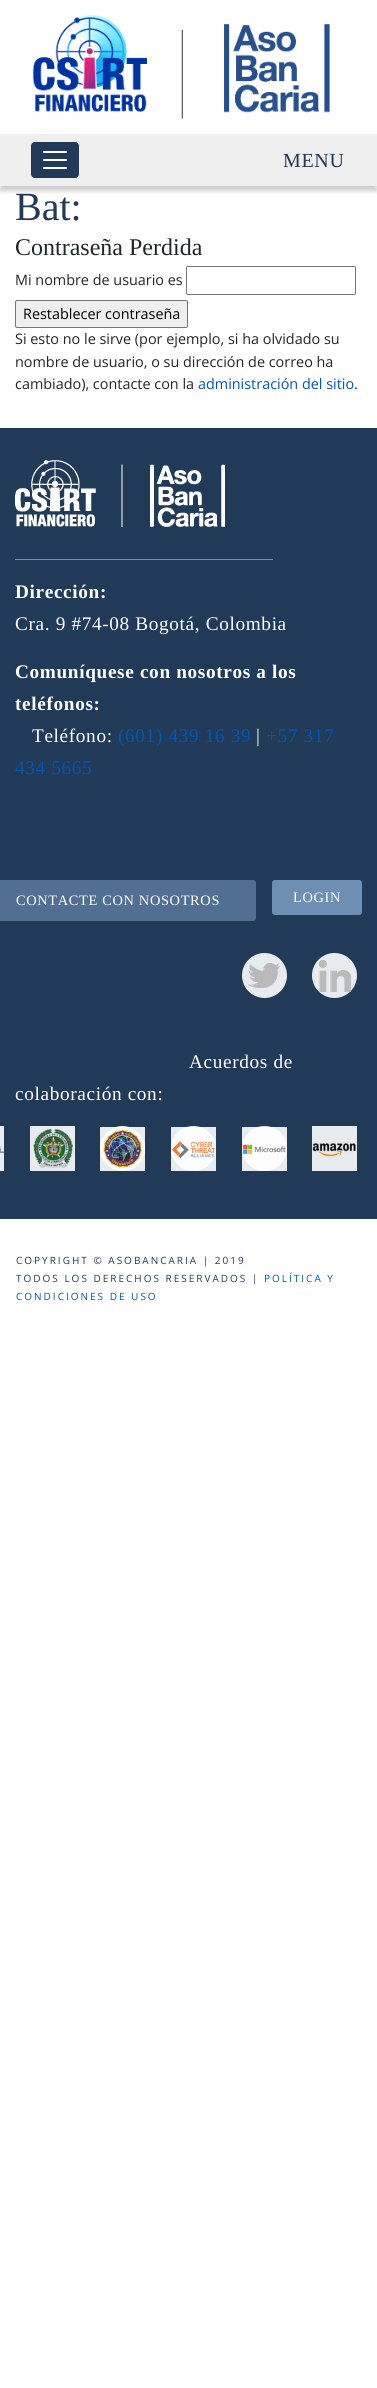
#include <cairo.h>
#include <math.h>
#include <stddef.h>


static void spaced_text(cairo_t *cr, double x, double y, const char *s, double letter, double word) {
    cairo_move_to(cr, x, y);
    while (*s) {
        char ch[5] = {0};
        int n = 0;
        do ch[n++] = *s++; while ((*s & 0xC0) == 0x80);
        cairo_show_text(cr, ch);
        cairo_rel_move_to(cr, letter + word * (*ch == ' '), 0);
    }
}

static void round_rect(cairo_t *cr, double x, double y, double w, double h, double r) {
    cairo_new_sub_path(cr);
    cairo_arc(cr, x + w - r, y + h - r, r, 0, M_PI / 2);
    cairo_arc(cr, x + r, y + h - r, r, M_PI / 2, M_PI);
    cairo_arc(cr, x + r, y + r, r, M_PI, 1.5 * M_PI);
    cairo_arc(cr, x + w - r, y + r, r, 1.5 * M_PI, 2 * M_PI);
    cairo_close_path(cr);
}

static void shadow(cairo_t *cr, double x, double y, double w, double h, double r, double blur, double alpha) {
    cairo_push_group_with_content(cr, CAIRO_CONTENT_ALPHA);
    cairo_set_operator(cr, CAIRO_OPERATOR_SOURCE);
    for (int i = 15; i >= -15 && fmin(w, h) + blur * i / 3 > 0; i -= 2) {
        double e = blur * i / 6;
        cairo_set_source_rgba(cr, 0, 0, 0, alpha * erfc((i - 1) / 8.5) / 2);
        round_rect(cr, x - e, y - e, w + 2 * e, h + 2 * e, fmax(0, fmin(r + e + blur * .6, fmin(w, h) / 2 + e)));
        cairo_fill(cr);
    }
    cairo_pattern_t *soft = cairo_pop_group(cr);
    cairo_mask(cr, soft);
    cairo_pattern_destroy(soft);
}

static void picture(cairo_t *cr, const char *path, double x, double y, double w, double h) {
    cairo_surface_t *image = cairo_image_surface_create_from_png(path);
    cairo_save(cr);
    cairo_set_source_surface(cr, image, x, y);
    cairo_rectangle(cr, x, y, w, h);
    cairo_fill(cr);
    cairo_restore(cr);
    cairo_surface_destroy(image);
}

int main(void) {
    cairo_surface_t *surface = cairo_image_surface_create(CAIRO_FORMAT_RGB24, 377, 2388);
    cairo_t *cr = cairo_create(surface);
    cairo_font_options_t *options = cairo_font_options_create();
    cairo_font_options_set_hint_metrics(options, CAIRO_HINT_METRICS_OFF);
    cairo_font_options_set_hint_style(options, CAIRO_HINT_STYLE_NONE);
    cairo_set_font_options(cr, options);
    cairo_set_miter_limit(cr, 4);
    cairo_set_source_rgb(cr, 1, 1, 1);
    cairo_paint(cr);
    cairo_save(cr);
    cairo_rectangle(cr, 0, 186, 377, 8);
    cairo_clip(cr);
    cairo_set_source_rgb(cr, 0.004, 0.004, 0.004);
    shadow(cr, 0, 5, 377, 186, 0, 2.5, 0.2);
    cairo_restore(cr);
    picture(cr, "img1.png", 32, 14, 298, 106);
    cairo_set_source_rgb(cr, 0.937, 0.937, 0.937);
    cairo_rectangle(cr, 0, 134, 377, 52);
    cairo_fill(cr);
    cairo_set_source_rgb(cr, 0.125, 0.227, 0.345);
    round_rect(cr, 31.5, 142.5, 47, 35, 3.5);
    cairo_fill_preserve(cr);
    cairo_set_line_width(cr, 1);
    cairo_stroke(cr);
    picture(cr, "img2.png", 43, 151, 24, 18);
    cairo_select_font_face(cr, "Liberation Serif", CAIRO_FONT_SLANT_NORMAL, CAIRO_FONT_WEIGHT_NORMAL);
    cairo_set_font_size(cr, 20);
    spaced_text(cr, 283, 167, "MENU", 0.65, 0);
    cairo_set_font_size(cr, 40);
    cairo_move_to(cr, 15, 220);
    cairo_show_text(cr, "Bat:");
    cairo_set_font_size(cr, 24);
    cairo_set_source_rgb(cr, 0.129, 0.145, 0.161);
    cairo_move_to(cr, 15, 255);
    cairo_show_text(cr, "Contraseña Perdida");
    cairo_select_font_face(cr, "Open Sans", CAIRO_FONT_SLANT_NORMAL, CAIRO_FONT_WEIGHT_NORMAL);
    cairo_set_font_size(cr, 14.4);
    cairo_move_to(cr, 15, 285);
    cairo_show_text(cr, "Mi nombre de usuario es");
    round_rect(cr, 186.5, 266.5, 169, 28, 1.5);
    cairo_set_source_rgb(cr, 0.463, 0.463, 0.463);
    cairo_stroke(cr);
    cairo_set_source_rgb(cr, 0.937, 0.937, 0.937);
    round_rect(cr, 15.5, 300.5, 172, 27, 1.5);
    cairo_fill_preserve(cr);
    cairo_set_source_rgb(cr, 0.463, 0.463, 0.463);
    cairo_stroke(cr);
    cairo_set_source_rgb(cr, 0, 0, 0);
    cairo_move_to(cr, 23, 319);
    cairo_show_text(cr, "Restablecer contraseña");
    cairo_set_source_rgb(cr, 0.129, 0.145, 0.161);
    cairo_move_to(cr, 15, 344);
    cairo_show_text(cr, "Si esto no le sirve (por ejemplo, si ha olvidado su");
    cairo_move_to(cr, 15, 367);
    cairo_show_text(cr, "nombre de usuario, o su dirección de correo ha");
    cairo_move_to(cr, 15, 389);
    cairo_show_text(cr, "cambiado), contacte con la");
    cairo_set_source_rgb(cr, 0, 0.337, 0.702);
    cairo_move_to(cr, 198, 389);
    cairo_show_text(cr, "administración del sitio");
    cairo_set_source_rgb(cr, 0.129, 0.145, 0.161);
    cairo_move_to(cr, 354, 389);
    cairo_show_text(cr, ".");
    cairo_set_source_rgb(cr, 0.125, 0.227, 0.345);
    cairo_rectangle(cr, 0, 428, 377, 791);
    cairo_fill(cr);
    picture(cr, "img3.png", 15, 460, 210, 67);
    cairo_set_source_rgb(cr, 0.502, 0.561, 0.627);
    cairo_rectangle(cr, 15, 559, 258, 1);
    cairo_fill(cr);
    cairo_select_font_face(cr, "Liberation Serif", CAIRO_FONT_SLANT_NORMAL, CAIRO_FONT_WEIGHT_BOLD);
    cairo_set_font_size(cr, 19.25);
    cairo_set_source_rgb(cr, 1, 1, 1);
    spaced_text(cr, 15, 598, "Dirección:", 0.65, 0);
    cairo_select_font_face(cr, "Liberation Serif", CAIRO_FONT_SLANT_NORMAL, CAIRO_FONT_WEIGHT_NORMAL);
    spaced_text(cr, 15, 630, "Cra. 9 #74-08 Bogotá, Colombia", 0.65, 0);
    cairo_select_font_face(cr, "Liberation Serif", CAIRO_FONT_SLANT_NORMAL, CAIRO_FONT_WEIGHT_BOLD);
    spaced_text(cr, 15, 678, "Comuníquese con nosotros a los", 0.65, 0);
    spaced_text(cr, 15, 710, "teléfonos:", 0.65, 0);
    cairo_select_font_face(cr, "Liberation Serif", CAIRO_FONT_SLANT_NORMAL, CAIRO_FONT_WEIGHT_NORMAL);
    spaced_text(cr, 32, 742, "Teléfono:", 0.65, 0);
    cairo_set_source_rgb(cr, 0, 0.337, 0.702);
    spaced_text(cr, 118, 742, "(601) 439 16 39", 0.65, 0);
    cairo_set_source_rgb(cr, 1, 1, 1);
    spaced_text(cr, 256, 742, "|", 0.65, 0);
    cairo_set_source_rgb(cr, 0, 0.337, 0.702);
    spaced_text(cr, 266, 742, "+57 317", 0.65, 0);
    spaced_text(cr, 15, 774, "434 5665", 0.65, 0);
    cairo_set_source_rgb(cr, 0.314, 0.435, 0.576);
    round_rect(cr, -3, 880, 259, 41, 3);
    cairo_fill(cr);
    cairo_set_font_size(cr, 14.4);
    cairo_set_source_rgb(cr, 1, 1, 1);
    spaced_text(cr, 16, 905, "CONTACTE CON NOSOTROS", 0.65, 0);
    cairo_set_source_rgb(cr, 0.431, 0.557, 0.706);
    round_rect(cr, 272, 880, 90, 35, 3);
    cairo_fill(cr);
    cairo_set_source_rgb(cr, 1, 1, 1);
    spaced_text(cr, 293, 902, "LOGIN", 0.65, 0);
    cairo_set_source_rgb(cr, 0.914, 0.922, 0.933);
    cairo_new_path(cr);
    cairo_arc(cr, 264.5, 975.5, 22.5, 0, 2 * M_PI);
    cairo_fill(cr);
    picture(cr, "img4.png", 248, 963, 32, 25);
    cairo_arc(cr, 334.5, 975.5, 22.5, 0, 2 * M_PI);
    cairo_fill(cr);
    picture(cr, "img5.png", 319, 960, 32, 32);
    cairo_set_font_size(cr, 19.25);
    cairo_set_source_rgb(cr, 1, 1, 1);
    spaced_text(cr, 189, 1068, "Acuerdos de", 0.65, 0);
    spaced_text(cr, 15, 1100, "colaboración con:", 0.65, 0);
    picture(cr, "img6.png", 0, 1126, 4, 45);
    picture(cr, "img7.png", 30, 1126, 45, 45);
    cairo_set_source_rgb(cr, 0.914, 0.922, 0.933);
    cairo_arc(cr, 122.5, 1148.5, 22.5, 0, 2 * M_PI);
    cairo_fill(cr);
    picture(cr, "img8.png", 100, 1127, 45, 44);
    cairo_arc(cr, 193.5, 1148.5, 22.5, 0, 2 * M_PI);
    cairo_fill(cr);
    picture(cr, "img9.png", 171, 1127, 45, 44);
    cairo_arc(cr, 264.5, 1148.5, 22.5, 0, 2 * M_PI);
    cairo_fill(cr);
    picture(cr, "img10.png", 242, 1127, 45, 44);
    picture(cr, "img11.png", 312, 1126, 45, 45);
    cairo_select_font_face(cr, "Open Sans", CAIRO_FONT_SLANT_NORMAL, CAIRO_FONT_WEIGHT_NORMAL);
    cairo_set_font_size(cr, 10);
    cairo_set_source_rgb(cr, 0.125, 0.227, 0.345);
    spaced_text(cr, 16, 1264, "COPYRIGHT © ASOBANCARIA | 2019", 2, 0);
    spaced_text(cr, 16, 1282, "TODOS LOS DERECHOS RESERVADOS |", 2, 0);
    cairo_set_source_rgb(cr, 0, 0.337, 0.702);
    spaced_text(cr, 264, 1282, "POLÍTICA Y", 2, 0);
    spaced_text(cr, 16, 1300, "CONDICIONES DE USO", 2, 0);
    cairo_surface_write_to_png(surface, "page.png");
    cairo_font_options_destroy(options);
    cairo_destroy(cr);
    cairo_surface_destroy(surface);
    return 0;
}
